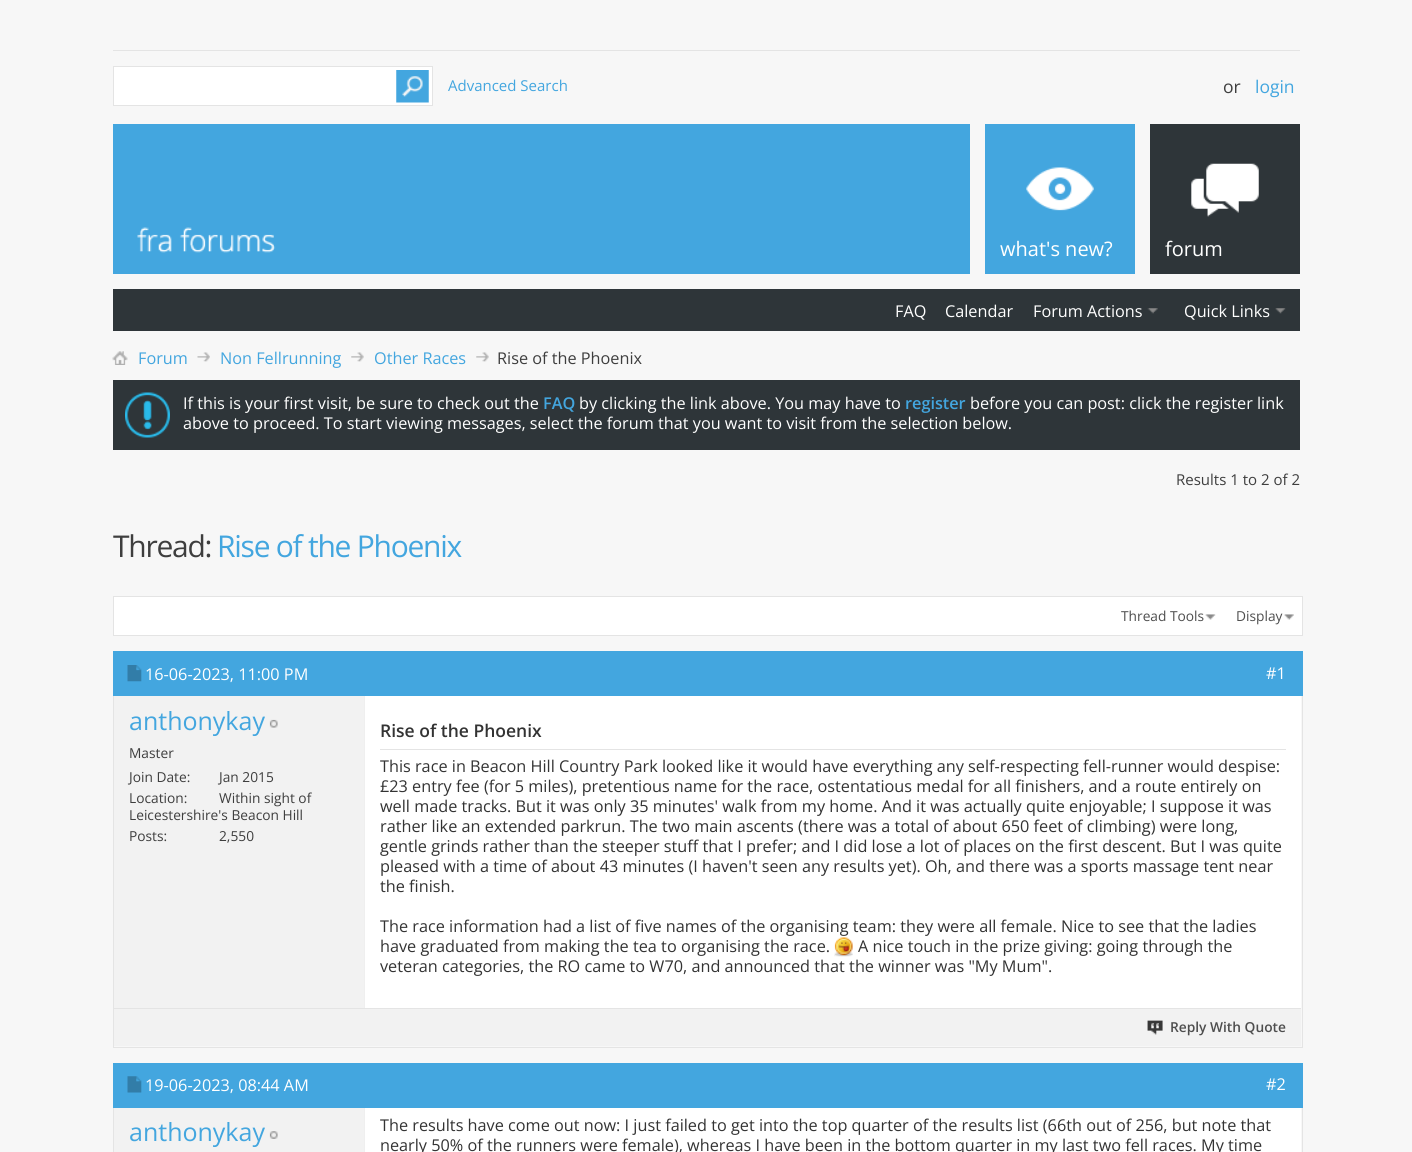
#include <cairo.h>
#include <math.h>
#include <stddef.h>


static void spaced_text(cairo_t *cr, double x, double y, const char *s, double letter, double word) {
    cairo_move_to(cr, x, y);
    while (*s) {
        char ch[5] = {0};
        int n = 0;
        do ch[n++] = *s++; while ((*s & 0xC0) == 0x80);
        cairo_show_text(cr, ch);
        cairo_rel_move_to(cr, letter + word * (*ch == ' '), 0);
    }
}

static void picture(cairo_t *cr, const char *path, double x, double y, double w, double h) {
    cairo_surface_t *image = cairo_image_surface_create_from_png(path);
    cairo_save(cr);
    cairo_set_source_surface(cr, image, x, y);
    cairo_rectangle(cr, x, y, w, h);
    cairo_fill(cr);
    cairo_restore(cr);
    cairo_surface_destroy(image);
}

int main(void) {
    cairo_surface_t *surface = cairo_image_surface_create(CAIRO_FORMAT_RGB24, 1412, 1152);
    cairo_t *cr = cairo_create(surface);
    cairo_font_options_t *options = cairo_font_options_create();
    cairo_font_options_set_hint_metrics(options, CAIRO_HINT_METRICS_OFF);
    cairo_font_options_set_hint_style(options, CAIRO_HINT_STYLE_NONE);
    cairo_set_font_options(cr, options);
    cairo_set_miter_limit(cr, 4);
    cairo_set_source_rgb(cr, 0.965, 0.965, 0.965);
    cairo_paint(cr);
    cairo_set_source_rgb(cr, 0.894, 0.894, 0.894);
    cairo_rectangle(cr, 113, 50, 1187, 1);
    cairo_fill(cr);
    cairo_set_source_rgb(cr, 1, 1, 1);
    cairo_rectangle(cr, 113.5, 66.5, 319, 39);
    cairo_fill_preserve(cr);
    cairo_set_source_rgb(cr, 0.894, 0.894, 0.894);
    cairo_set_line_width(cr, 1);
    cairo_stroke(cr);
    picture(cr, "img1.png", 396, 70, 33, 33);
    cairo_select_font_face(cr, "Open Sans", CAIRO_FONT_SLANT_NORMAL, CAIRO_FONT_WEIGHT_NORMAL);
    cairo_set_font_size(cr, 15);
    cairo_set_source_rgb(cr, 0.263, 0.651, 0.875);
    cairo_move_to(cr, 448, 91);
    cairo_show_text(cr, "Advanced Search");
    cairo_set_font_size(cr, 17.5);
    cairo_set_source_rgb(cr, 0.243, 0.243, 0.243);
    cairo_move_to(cr, 1223, 93);
    cairo_show_text(cr, "or");
    cairo_set_source_rgb(cr, 0.263, 0.651, 0.875);
    cairo_move_to(cr, 1255, 93);
    cairo_show_text(cr, "login");
    cairo_rectangle(cr, 113, 124, 1022, 150);
    cairo_fill(cr);
    picture(cr, "img2.png", 137, 227, 139, 26);
    cairo_set_source_rgb(cr, 0.965, 0.965, 0.965);
    cairo_rectangle(cr, 970, 124, 15, 150);
    cairo_fill(cr);
    picture(cr, "img3.png", 1026, 167, 68, 44);
    cairo_set_font_size(cr, 20);
    cairo_set_source_rgb(cr, 1, 1, 1);
    cairo_move_to(cr, 1000, 256);
    cairo_show_text(cr, "what's new?");
    cairo_set_source_rgb(cr, 0.18, 0.208, 0.224);
    cairo_rectangle(cr, 1150, 124, 150, 150);
    cairo_fill(cr);
    picture(cr, "img4.png", 1191, 163, 68, 54);
    cairo_set_source_rgb(cr, 1, 1, 1);
    cairo_move_to(cr, 1165, 256);
    cairo_show_text(cr, "forum");
    cairo_set_source_rgb(cr, 0.18, 0.208, 0.224);
    cairo_rectangle(cr, 113, 289, 1187, 42);
    cairo_fill(cr);
    cairo_set_font_size(cr, 16.25);
    cairo_set_source_rgb(cr, 1, 1, 1);
    cairo_move_to(cr, 895, 317);
    cairo_show_text(cr, "FAQ");
    cairo_move_to(cr, 945, 317);
    cairo_show_text(cr, "Calendar");
    cairo_move_to(cr, 1033, 317);
    cairo_show_text(cr, "Forum Actions");
    picture(cr, "img5.png", 1147, 308, 11, 6);
    cairo_move_to(cr, 1184, 317);
    cairo_show_text(cr, "Quick Links");
    picture(cr, "img6.png", 1275, 308, 11, 6);
    picture(cr, "img7.png", 112, 351, 16, 14);
    picture(cr, "img8.png", 197, 352, 13, 10);
    cairo_set_source_rgb(cr, 0.263, 0.651, 0.875);
    cairo_move_to(cr, 138, 364);
    cairo_show_text(cr, "Forum");
    picture(cr, "img9.png", 351, 352, 13, 10);
    cairo_move_to(cr, 220, 364);
    cairo_show_text(cr, "Non Fellrunning");
    picture(cr, "img9.png", 476, 352, 13, 10);
    cairo_move_to(cr, 374, 364);
    cairo_show_text(cr, "Other Races");
    cairo_set_source_rgb(cr, 0.243, 0.243, 0.243);
    cairo_move_to(cr, 497, 364);
    cairo_show_text(cr, "Rise of the Phoenix");
    cairo_set_source_rgb(cr, 0.18, 0.208, 0.224);
    cairo_rectangle(cr, 113, 380, 1187, 70);
    cairo_fill(cr);
    picture(cr, "img10.png", 125, 392, 45, 46);
    cairo_set_source_rgb(cr, 1, 1, 1);
    cairo_move_to(cr, 183, 409);
    cairo_show_text(cr, "If this is your first visit, be sure to check out the");
    cairo_select_font_face(cr, "Open Sans SemiBold", CAIRO_FONT_SLANT_NORMAL, CAIRO_FONT_WEIGHT_NORMAL);
    cairo_set_source_rgb(cr, 0.263, 0.651, 0.875);
    cairo_move_to(cr, 543, 409);
    cairo_show_text(cr, "FAQ");
    cairo_select_font_face(cr, "Open Sans", CAIRO_FONT_SLANT_NORMAL, CAIRO_FONT_WEIGHT_NORMAL);
    cairo_set_source_rgb(cr, 1, 1, 1);
    cairo_move_to(cr, 579, 409);
    cairo_show_text(cr, "by clicking the link above. You may have to");
    cairo_select_font_face(cr, "Open Sans SemiBold", CAIRO_FONT_SLANT_NORMAL, CAIRO_FONT_WEIGHT_NORMAL);
    cairo_set_source_rgb(cr, 0.263, 0.651, 0.875);
    cairo_move_to(cr, 905, 409);
    cairo_show_text(cr, "register");
    cairo_select_font_face(cr, "Open Sans", CAIRO_FONT_SLANT_NORMAL, CAIRO_FONT_WEIGHT_NORMAL);
    cairo_set_source_rgb(cr, 1, 1, 1);
    cairo_move_to(cr, 970, 409);
    cairo_show_text(cr, "before you can post: click the register link");
    cairo_move_to(cr, 183, 429);
    cairo_show_text(cr, "above to proceed. To start viewing messages, select the forum that you want to visit from the selection below.");
    cairo_set_font_size(cr, 15);
    cairo_set_source_rgb(cr, 0.243, 0.243, 0.243);
    cairo_move_to(cr, 1176, 485);
    cairo_show_text(cr, "Results 1 to 2 of 2");
    cairo_set_font_size(cr, 30);
    spaced_text(cr, 113, 557, "Thread:", -1.25, 0);
    cairo_set_source_rgb(cr, 0.263, 0.651, 0.875);
    spaced_text(cr, 217, 557, "Rise of the Phoenix", -1.25, 0);
    cairo_set_source_rgb(cr, 1, 1, 1);
    cairo_rectangle(cr, 113.5, 596.5, 1189, 39);
    cairo_fill_preserve(cr);
    cairo_set_source_rgb(cr, 0.894, 0.894, 0.894);
    cairo_stroke(cr);
    picture(cr, "img11.png", 1205, 614, 11, 6);
    cairo_set_font_size(cr, 13.75);
    cairo_set_source_rgb(cr, 0.306, 0.306, 0.306);
    cairo_move_to(cr, 1121, 621);
    cairo_show_text(cr, "Thread Tools");
    picture(cr, "img12.png", 1284, 614, 10, 6);
    cairo_move_to(cr, 1236, 621);
    cairo_show_text(cr, "Display");
    cairo_rectangle(cr, 113.5, 651.5, 1189, 396);
    cairo_set_source_rgb(cr, 0.894, 0.894, 0.894);
    cairo_stroke(cr);
    cairo_set_source_rgb(cr, 0.263, 0.651, 0.875);
    cairo_rectangle(cr, 113, 651, 1190, 45);
    cairo_fill(cr);
    picture(cr, "img13.png", 127, 665, 15, 17);
    cairo_set_font_size(cr, 16.25);
    cairo_set_source_rgb(cr, 1, 1, 1);
    cairo_move_to(cr, 145, 680);
    cairo_show_text(cr, "16-06-2023, 11:00 PM");
    cairo_move_to(cr, 1266, 679);
    cairo_show_text(cr, "#1");
    cairo_set_source_rgb(cr, 0.949, 0.949, 0.949);
    cairo_rectangle(cr, 114, 696, 250, 312);
    cairo_fill(cr);
    cairo_set_font_size(cr, 25);
    cairo_set_source_rgb(cr, 0.263, 0.651, 0.875);
    cairo_move_to(cr, 129, 730);
    cairo_show_text(cr, "anthonykay");
    picture(cr, "img14.png", 269, 719, 9, 9);
    cairo_set_font_size(cr, 13.75);
    cairo_set_source_rgb(cr, 0.243, 0.243, 0.243);
    cairo_move_to(cr, 129, 758);
    cairo_show_text(cr, "Master");
    cairo_move_to(cr, 129, 782);
    cairo_show_text(cr, "Join Date:");
    cairo_move_to(cr, 219, 782);
    cairo_show_text(cr, "Jan 2015");
    cairo_move_to(cr, 129, 803);
    cairo_show_text(cr, "Location:");
    cairo_move_to(cr, 219, 803);
    cairo_show_text(cr, "Within sight of");
    cairo_move_to(cr, 129, 820);
    cairo_show_text(cr, "Leicestershire's Beacon Hill");
    cairo_move_to(cr, 129, 841);
    cairo_show_text(cr, "Posts:");
    cairo_move_to(cr, 219, 841);
    cairo_show_text(cr, "2,550");
    cairo_set_source_rgb(cr, 1, 1, 1);
    cairo_rectangle(cr, 365, 696, 936, 312);
    cairo_fill(cr);
    cairo_set_source_rgb(cr, 0.937, 0.937, 0.937);
    cairo_rectangle(cr, 364, 696, 1, 312);
    cairo_fill(cr);
    cairo_set_source_rgb(cr, 0.894, 0.894, 0.894);
    cairo_rectangle(cr, 380, 749, 906, 1);
    cairo_fill(cr);
    cairo_select_font_face(cr, "Open Sans SemiBold", CAIRO_FONT_SLANT_NORMAL, CAIRO_FONT_WEIGHT_NORMAL);
    cairo_set_font_size(cr, 17.5);
    cairo_set_source_rgb(cr, 0.2, 0.2, 0.2);
    cairo_move_to(cr, 380, 737);
    cairo_show_text(cr, "Rise of the Phoenix");
    cairo_select_font_face(cr, "Open Sans", CAIRO_FONT_SLANT_NORMAL, CAIRO_FONT_WEIGHT_NORMAL);
    cairo_set_font_size(cr, 16.25);
    cairo_move_to(cr, 380, 772);
    cairo_show_text(cr, "This race in Beacon Hill Country Park looked like it would have everything any self-respecting fell-runner would despise:");
    cairo_move_to(cr, 380, 792);
    cairo_show_text(cr, "£23 entry fee (for 5 miles), pretentious name for the race, ostentatious medal for all finishers, and a route entirely on");
    cairo_move_to(cr, 380, 812);
    cairo_show_text(cr, "well made tracks. But it was only 35 minutes' walk from my home. And it was actually quite enjoyable; I suppose it was");
    cairo_move_to(cr, 380, 832);
    cairo_show_text(cr, "rather like an extended parkrun. The two main ascents (there was a total of about 650 feet of climbing) were long,");
    cairo_move_to(cr, 380, 852);
    cairo_show_text(cr, "gentle grinds rather than the steeper stuff that I prefer; and I did lose a lot of places on the first descent. But I was quite");
    cairo_move_to(cr, 380, 872);
    cairo_show_text(cr, "pleased with a time of about 43 minutes (I haven't seen any results yet). Oh, and there was a sports massage tent near");
    cairo_move_to(cr, 380, 892);
    cairo_show_text(cr, "the finish.");
    cairo_move_to(cr, 380, 932);
    cairo_show_text(cr, "The race information had a list of five names of the organising team: they were all female. Nice to see that the ladies");
    cairo_move_to(cr, 380, 952);
    cairo_show_text(cr, "have graduated from making the tea to organising the race.");
    picture(cr, "img15.png", 834, 937, 19, 20);
    cairo_move_to(cr, 858, 952);
    cairo_show_text(cr, "A nice touch in the prize giving: going through the");
    cairo_move_to(cr, 380, 972);
    cairo_show_text(cr, "veteran categories, the RO came to W70, and announced that the winner was \"My Mum\".");
    cairo_set_source_rgb(cr, 0.949, 0.949, 0.949);
    cairo_rectangle(cr, 114, 1009, 1187, 37);
    cairo_fill(cr);
    cairo_set_source_rgb(cr, 0.894, 0.894, 0.894);
    cairo_rectangle(cr, 114, 1008, 1187, 1);
    cairo_fill(cr);
    picture(cr, "img16.png", 1147, 1020, 16, 15);
    cairo_select_font_face(cr, "Open Sans SemiBold", CAIRO_FONT_SLANT_NORMAL, CAIRO_FONT_WEIGHT_NORMAL);
    cairo_set_font_size(cr, 13.75);
    cairo_set_source_rgb(cr, 0.306, 0.306, 0.306);
    cairo_move_to(cr, 1170, 1032);
    cairo_show_text(cr, "Reply With Quote");
    cairo_rectangle(cr, 113.5, 1063.5, 1189, 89);
    cairo_set_source_rgb(cr, 0.894, 0.894, 0.894);
    cairo_stroke(cr);
    cairo_set_source_rgb(cr, 0.263, 0.651, 0.875);
    cairo_rectangle(cr, 113, 1063, 1190, 45);
    cairo_fill(cr);
    picture(cr, "img17.png", 127, 1076, 15, 17);
    cairo_select_font_face(cr, "Open Sans", CAIRO_FONT_SLANT_NORMAL, CAIRO_FONT_WEIGHT_NORMAL);
    cairo_set_font_size(cr, 16.25);
    cairo_set_source_rgb(cr, 1, 1, 1);
    cairo_move_to(cr, 145, 1091);
    cairo_show_text(cr, "19-06-2023, 08:44 AM");
    cairo_move_to(cr, 1266, 1090);
    cairo_show_text(cr, "#2");
    cairo_set_source_rgb(cr, 0.949, 0.949, 0.949);
    cairo_rectangle(cr, 114, 1108, 250, 44);
    cairo_fill(cr);
    cairo_set_font_size(cr, 25);
    cairo_set_source_rgb(cr, 0.263, 0.651, 0.875);
    cairo_move_to(cr, 129, 1141);
    cairo_show_text(cr, "anthonykay");
    picture(cr, "img18.png", 269, 1131, 9, 8);
    cairo_set_source_rgb(cr, 1, 1, 1);
    cairo_rectangle(cr, 365, 1108, 936, 44);
    cairo_fill(cr);
    cairo_set_source_rgb(cr, 0.937, 0.937, 0.937);
    cairo_rectangle(cr, 364, 1108, 1, 44);
    cairo_fill(cr);
    cairo_set_font_size(cr, 16.25);
    cairo_set_source_rgb(cr, 0.2, 0.2, 0.2);
    cairo_move_to(cr, 380, 1131);
    cairo_show_text(cr, "The results have come out now: I just failed to get into the top quarter of the results list (66th out of 256, but note that");
    cairo_move_to(cr, 380, 1151);
    cairo_show_text(cr, "nearly 50% of the runners were female), whereas I have been in the bottom quarter in my last two fell races. My time");
    cairo_surface_write_to_png(surface, "page.png");
    cairo_font_options_destroy(options);
    cairo_destroy(cr);
    cairo_surface_destroy(surface);
    return 0;
}
